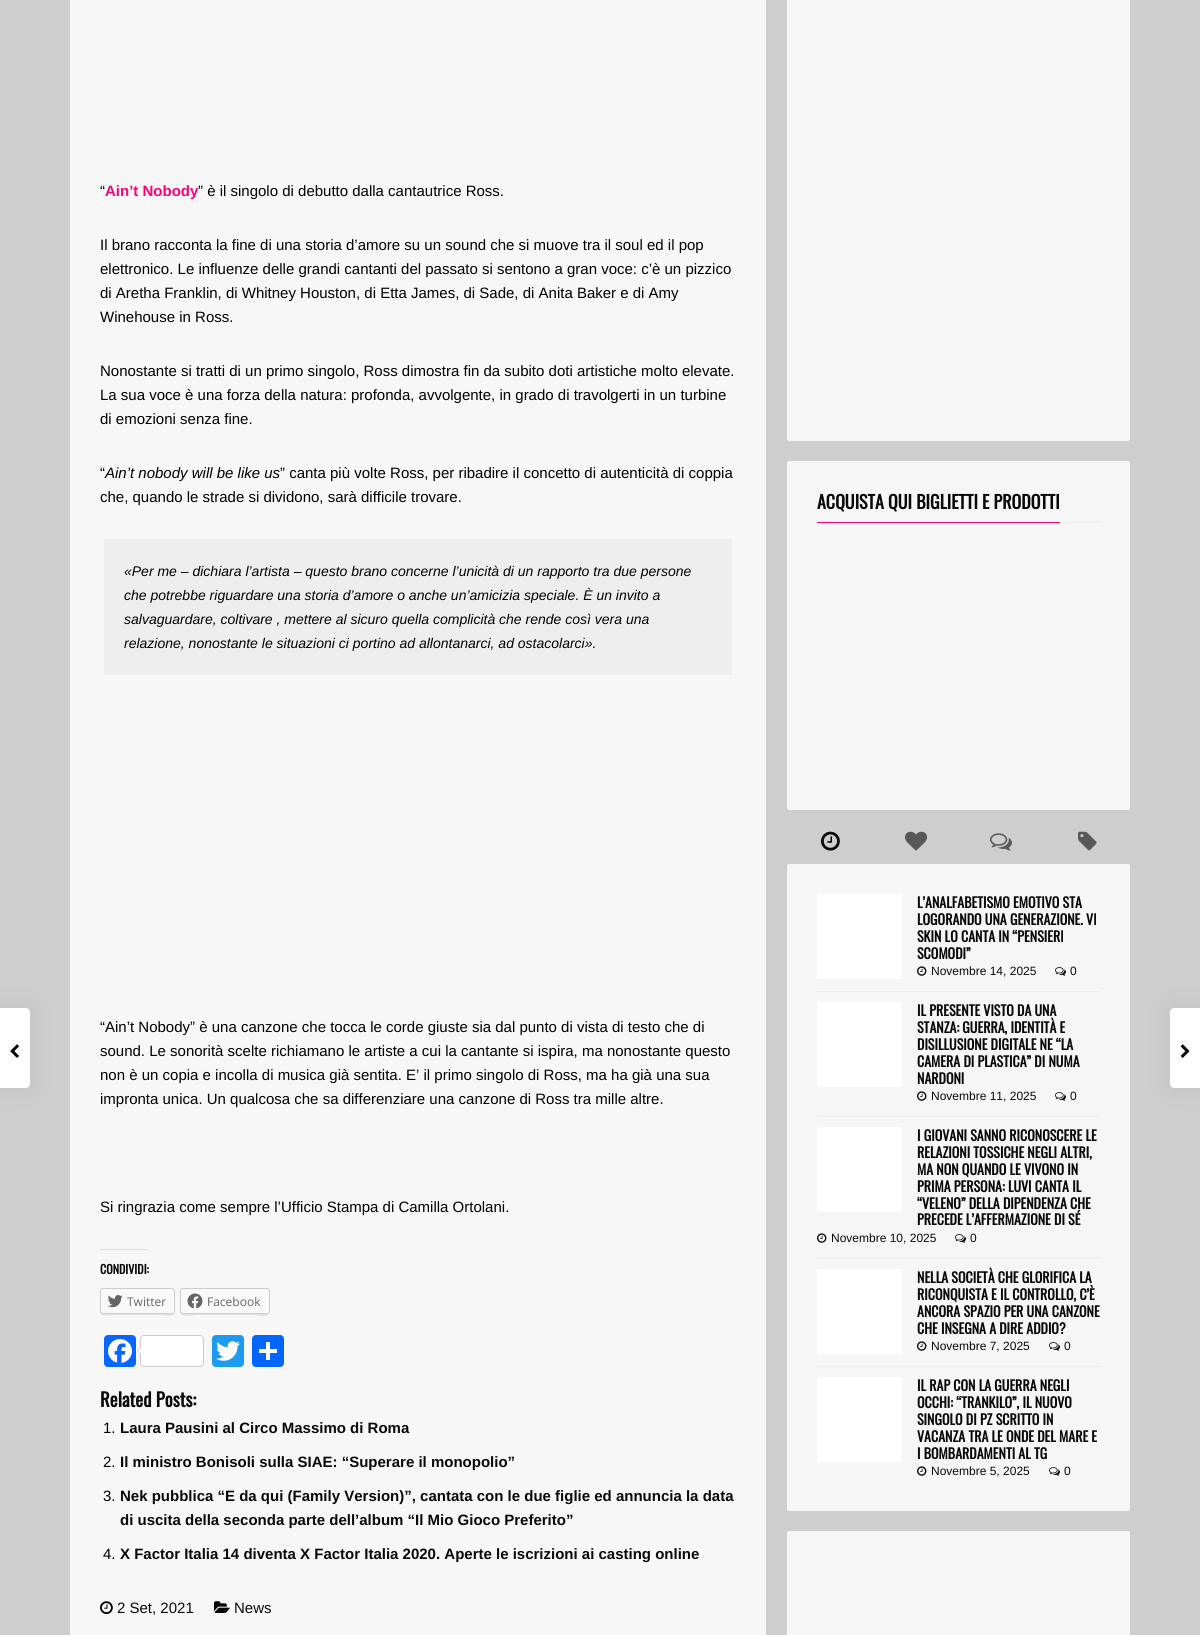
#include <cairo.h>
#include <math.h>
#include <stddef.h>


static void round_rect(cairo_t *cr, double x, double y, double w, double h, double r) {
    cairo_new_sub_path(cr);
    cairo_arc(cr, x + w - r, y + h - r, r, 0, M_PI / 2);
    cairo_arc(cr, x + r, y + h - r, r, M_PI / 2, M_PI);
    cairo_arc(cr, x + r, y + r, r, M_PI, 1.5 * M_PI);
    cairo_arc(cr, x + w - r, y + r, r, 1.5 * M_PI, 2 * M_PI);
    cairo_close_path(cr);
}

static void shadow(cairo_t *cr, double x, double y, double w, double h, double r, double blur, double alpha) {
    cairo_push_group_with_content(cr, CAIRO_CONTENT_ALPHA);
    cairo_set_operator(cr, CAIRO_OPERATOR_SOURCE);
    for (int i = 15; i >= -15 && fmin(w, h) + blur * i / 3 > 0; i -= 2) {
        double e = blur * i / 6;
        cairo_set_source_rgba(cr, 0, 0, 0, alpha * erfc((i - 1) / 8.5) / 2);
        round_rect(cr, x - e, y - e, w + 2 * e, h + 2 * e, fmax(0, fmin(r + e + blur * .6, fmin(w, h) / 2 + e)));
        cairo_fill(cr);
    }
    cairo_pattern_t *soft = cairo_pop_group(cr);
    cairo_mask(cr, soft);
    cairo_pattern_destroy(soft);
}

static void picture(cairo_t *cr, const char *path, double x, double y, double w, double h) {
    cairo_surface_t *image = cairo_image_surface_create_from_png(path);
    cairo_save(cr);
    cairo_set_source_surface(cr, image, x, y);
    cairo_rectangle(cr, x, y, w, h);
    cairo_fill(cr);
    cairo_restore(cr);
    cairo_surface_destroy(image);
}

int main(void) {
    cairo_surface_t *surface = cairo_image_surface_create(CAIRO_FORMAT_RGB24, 1200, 1635);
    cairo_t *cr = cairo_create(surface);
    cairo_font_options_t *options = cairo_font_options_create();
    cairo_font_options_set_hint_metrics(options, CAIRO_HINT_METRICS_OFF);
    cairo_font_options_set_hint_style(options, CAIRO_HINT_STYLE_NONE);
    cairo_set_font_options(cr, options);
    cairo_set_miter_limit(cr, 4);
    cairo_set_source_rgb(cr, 0.808, 0.808, 0.808);
    cairo_paint(cr);
    cairo_set_source_rgb(cr, 0.965, 0.965, 0.965);
    cairo_rectangle(cr, 70, 0, 696, 1635);
    cairo_fill(cr);
    cairo_select_font_face(cr, "Liberation Sans", CAIRO_FONT_SLANT_NORMAL, CAIRO_FONT_WEIGHT_NORMAL);
    cairo_set_font_size(cr, 15);
    cairo_set_source_rgb(cr, 0, 0, 0);
    cairo_move_to(cr, 100, 196);
    cairo_show_text(cr, "“");
    cairo_select_font_face(cr, "Liberation Sans", CAIRO_FONT_SLANT_NORMAL, CAIRO_FONT_WEIGHT_BOLD);
    cairo_set_source_rgb(cr, 1, 0, 0.471);
    cairo_move_to(cr, 105, 196);
    cairo_show_text(cr, "Ain’t Nobody");
    cairo_select_font_face(cr, "Liberation Sans", CAIRO_FONT_SLANT_NORMAL, CAIRO_FONT_WEIGHT_NORMAL);
    cairo_set_source_rgb(cr, 0, 0, 0);
    cairo_move_to(cr, 198, 196);
    cairo_show_text(cr, "” è il singolo di debutto dalla cantautrice Ross.");
    cairo_move_to(cr, 100, 250);
    cairo_show_text(cr, "Il brano racconta la fine di una storia d’amore su un sound che si muove tra il soul ed il pop");
    cairo_move_to(cr, 100, 274);
    cairo_show_text(cr, "elettronico. Le influenze delle grandi cantanti del passato si sentono a gran voce: c’è un pizzico");
    cairo_move_to(cr, 100, 298);
    cairo_show_text(cr, "di Aretha Franklin, di Whitney Houston, di Etta James, di Sade, di Anita Baker e di Amy");
    cairo_move_to(cr, 100, 322);
    cairo_show_text(cr, "Winehouse in Ross.");
    cairo_move_to(cr, 100, 376);
    cairo_show_text(cr, "Nonostante si tratti di un primo singolo, Ross dimostra fin da subito doti artistiche molto elevate.");
    cairo_move_to(cr, 100, 400);
    cairo_show_text(cr, "La sua voce è una forza della natura: profonda, avvolgente, in grado di travolgerti in un turbine");
    cairo_move_to(cr, 100, 424);
    cairo_show_text(cr, "di emozioni senza fine.");
    cairo_move_to(cr, 100, 478);
    cairo_show_text(cr, "“");
    cairo_select_font_face(cr, "Liberation Sans", CAIRO_FONT_SLANT_ITALIC, CAIRO_FONT_WEIGHT_NORMAL);
    cairo_move_to(cr, 105, 478);
    cairo_show_text(cr, "Ain’t nobody will be like us");
    cairo_select_font_face(cr, "Liberation Sans", CAIRO_FONT_SLANT_NORMAL, CAIRO_FONT_WEIGHT_NORMAL);
    cairo_move_to(cr, 280, 478);
    cairo_show_text(cr, "” canta più volte Ross, per ribadire il concetto di autenticità di coppia");
    cairo_move_to(cr, 100, 502);
    cairo_show_text(cr, "che, quando le strade si dividono, sarà difficile trovare.");
    cairo_set_source_rgb(cr, 0.933, 0.933, 0.933);
    cairo_rectangle(cr, 104, 539, 628, 136);
    cairo_fill(cr);
    cairo_select_font_face(cr, "Liberation Sans", CAIRO_FONT_SLANT_ITALIC, CAIRO_FONT_WEIGHT_NORMAL);
    cairo_set_font_size(cr, 14);
    cairo_set_source_rgb(cr, 0, 0, 0);
    cairo_move_to(cr, 124, 576);
    cairo_show_text(cr, "«Per me – dichiara l’artista – questo brano concerne l’unicità di un rapporto tra due persone");
    cairo_move_to(cr, 124, 600);
    cairo_show_text(cr, "che potrebbe riguardare una storia d’amore o anche un’amicizia speciale. È un invito a");
    cairo_move_to(cr, 124, 624);
    cairo_show_text(cr, "salvaguardare, coltivare , mettere al sicuro quella complicità che rende così vera una");
    cairo_move_to(cr, 124, 648);
    cairo_show_text(cr, "relazione, nonostante le situazioni ci portino ad allontanarci, ad ostacolarci».");
    cairo_select_font_face(cr, "Liberation Sans", CAIRO_FONT_SLANT_NORMAL, CAIRO_FONT_WEIGHT_NORMAL);
    cairo_set_font_size(cr, 15);
    cairo_move_to(cr, 100, 1032);
    cairo_show_text(cr, "“Ain’t Nobody” è una canzone che tocca le corde giuste sia dal punto di vista di testo che di");
    cairo_move_to(cr, 100, 1056);
    cairo_show_text(cr, "sound. Le sonorità scelte richiamano le artiste a cui la cantante si ispira, ma nonostante questo");
    cairo_move_to(cr, 100, 1080);
    cairo_show_text(cr, "non è un copia e incolla di musica già sentita. E’ il primo singolo di Ross, ma ha già una sua");
    cairo_move_to(cr, 100, 1104);
    cairo_show_text(cr, "impronta unica. Un qualcosa che sa differenziare una canzone di Ross tra mille altre.");
    cairo_move_to(cr, 100, 1212);
    cairo_show_text(cr, "Si ringrazia come sempre l’Ufficio Stampa di Camilla Ortolani.");
    cairo_set_source_rgb(cr, 0.867, 0.867, 0.867);
    cairo_rectangle(cr, 100, 1249, 49, 1);
    cairo_fill(cr);
    cairo_select_font_face(cr, "Oswald", CAIRO_FONT_SLANT_NORMAL, CAIRO_FONT_WEIGHT_BOLD);
    cairo_set_font_size(cr, 12);
    cairo_set_source_rgb(cr, 0.039, 0.039, 0.039);
    cairo_move_to(cr, 100, 1274);
    cairo_show_text(cr, "CONDIVIDI:");
    cairo_set_source_rgb(cr, 0.886, 0.886, 0.886);
    cairo_new_path(cr);
    cairo_move_to(cr, 100, 1311);
    cairo_curve_to(cr, 100, 1318, 110, 1315, 114, 1315);
    cairo_line_to(cr, 160, 1315);
    cairo_curve_to(cr, 165, 1315, 175, 1318, 175, 1311);
    cairo_curve_to(cr, 175, 1313, 174, 1314, 172, 1314);
    cairo_line_to(cr, 103, 1314);
    cairo_curve_to(cr, 101, 1314, 100, 1313, 100, 1311);
    cairo_close_path(cr);
    cairo_fill(cr);
    cairo_set_source_rgb(cr, 0.973, 0.973, 0.973);
    round_rect(cr, 100.5, 1288.5, 74, 25, 2.5);
    cairo_fill_preserve(cr);
    cairo_set_source_rgb(cr, 0.8, 0.8, 0.8);
    cairo_set_line_width(cr, 1);
    cairo_stroke(cr);
    picture(cr, "img1.png", 107, 1295, 16, 13);
    cairo_select_font_face(cr, "Open Sans", CAIRO_FONT_SLANT_NORMAL, CAIRO_FONT_WEIGHT_NORMAL);
    cairo_set_source_rgb(cr, 0.396, 0.396, 0.396);
    cairo_move_to(cr, 127, 1306);
    cairo_show_text(cr, "Twitter");
    cairo_set_source_rgb(cr, 0.886, 0.886, 0.886);
    cairo_new_path(cr);
    cairo_move_to(cr, 180, 1311);
    cairo_curve_to(cr, 180, 1319, 193, 1315, 197, 1315);
    cairo_line_to(cr, 253, 1315);
    cairo_curve_to(cr, 257, 1315, 270, 1319, 270, 1311);
    cairo_curve_to(cr, 270, 1313, 269, 1314, 267, 1314);
    cairo_line_to(cr, 183, 1314);
    cairo_curve_to(cr, 181, 1314, 180, 1313, 180, 1311);
    cairo_close_path(cr);
    cairo_fill(cr);
    cairo_set_source_rgb(cr, 0.973, 0.973, 0.973);
    round_rect(cr, 180.5, 1288.5, 89, 25, 2.5);
    cairo_fill_preserve(cr);
    cairo_set_source_rgb(cr, 0.8, 0.8, 0.8);
    cairo_stroke(cr);
    picture(cr, "img2.png", 187, 1293, 16, 16);
    cairo_set_source_rgb(cr, 0.396, 0.396, 0.396);
    cairo_move_to(cr, 207, 1306);
    cairo_show_text(cr, "Facebook");
    cairo_set_source_rgb(cr, 0.031, 0.4, 1);
    round_rect(cr, 104, 1335, 32, 32, 4);
    cairo_fill(cr);
    picture(cr, "img3.png", 108, 1339, 24, 24);
    cairo_set_source_rgb(cr, 1, 1, 1);
    round_rect(cr, 140.5, 1335.5, 63, 31, 3.5);
    cairo_fill_preserve(cr);
    cairo_set_source_rgb(cr, 0.8, 0.8, 0.8);
    cairo_stroke(cr);
    cairo_new_path(cr);
    cairo_move_to(cr, 141, 1347);
    cairo_line_to(cr, 141, 1355);
    cairo_line_to(cr, 137, 1351);
    cairo_close_path(cr);
    cairo_fill(cr);
    cairo_set_source_rgb(cr, 1, 1, 1);
    cairo_new_path(cr);
    cairo_move_to(cr, 142, 1347);
    cairo_line_to(cr, 142, 1355);
    cairo_line_to(cr, 138, 1351);
    cairo_close_path(cr);
    cairo_fill(cr);
    cairo_set_source_rgb(cr, 0.114, 0.608, 0.941);
    round_rect(cr, 212, 1335, 32, 32, 4);
    cairo_fill(cr);
    picture(cr, "img4.png", 216, 1341, 24, 20);
    cairo_set_source_rgb(cr, 0.004, 0.4, 1);
    round_rect(cr, 252, 1335, 32, 32, 4);
    cairo_fill(cr);
    cairo_set_source_rgb(cr, 1, 1, 1);
    cairo_rectangle(cr, 266, 1342, 4, 18);
    cairo_fill(cr);
    cairo_rectangle(cr, 259, 1349, 18, 4);
    cairo_fill(cr);
    cairo_select_font_face(cr, "Oswald", CAIRO_FONT_SLANT_NORMAL, CAIRO_FONT_WEIGHT_BOLD);
    cairo_set_font_size(cr, 18.75);
    cairo_set_source_rgb(cr, 0.039, 0.039, 0.039);
    cairo_move_to(cr, 100, 1407);
    cairo_show_text(cr, "Related Posts:");
    cairo_select_font_face(cr, "Liberation Sans", CAIRO_FONT_SLANT_NORMAL, CAIRO_FONT_WEIGHT_NORMAL);
    cairo_set_font_size(cr, 15);
    cairo_set_source_rgb(cr, 0, 0, 0);
    cairo_move_to(cr, 103, 1433);
    cairo_show_text(cr, "1.");
    cairo_select_font_face(cr, "Liberation Sans", CAIRO_FONT_SLANT_NORMAL, CAIRO_FONT_WEIGHT_BOLD);
    cairo_set_source_rgb(cr, 0.039, 0.039, 0.039);
    cairo_move_to(cr, 120, 1433);
    cairo_show_text(cr, "Laura Pausini al Circo Massimo di Roma");
    cairo_select_font_face(cr, "Liberation Sans", CAIRO_FONT_SLANT_NORMAL, CAIRO_FONT_WEIGHT_NORMAL);
    cairo_set_source_rgb(cr, 0, 0, 0);
    cairo_move_to(cr, 103, 1467);
    cairo_show_text(cr, "2.");
    cairo_select_font_face(cr, "Liberation Sans", CAIRO_FONT_SLANT_NORMAL, CAIRO_FONT_WEIGHT_BOLD);
    cairo_set_source_rgb(cr, 0.039, 0.039, 0.039);
    cairo_move_to(cr, 120, 1467);
    cairo_show_text(cr, "Il ministro Bonisoli sulla SIAE: “Superare il monopolio”");
    cairo_select_font_face(cr, "Liberation Sans", CAIRO_FONT_SLANT_NORMAL, CAIRO_FONT_WEIGHT_NORMAL);
    cairo_set_source_rgb(cr, 0, 0, 0);
    cairo_move_to(cr, 103, 1501);
    cairo_show_text(cr, "3.");
    cairo_select_font_face(cr, "Liberation Sans", CAIRO_FONT_SLANT_NORMAL, CAIRO_FONT_WEIGHT_BOLD);
    cairo_set_source_rgb(cr, 0.039, 0.039, 0.039);
    cairo_move_to(cr, 120, 1501);
    cairo_show_text(cr, "Nek pubblica “E da qui (Family Version)”, cantata con le due figlie ed annuncia la data");
    cairo_move_to(cr, 120, 1525);
    cairo_show_text(cr, "di uscita della seconda parte dell’album “Il Mio Gioco Preferito”");
    cairo_select_font_face(cr, "Liberation Sans", CAIRO_FONT_SLANT_NORMAL, CAIRO_FONT_WEIGHT_NORMAL);
    cairo_set_source_rgb(cr, 0, 0, 0);
    cairo_move_to(cr, 103, 1559);
    cairo_show_text(cr, "4.");
    cairo_select_font_face(cr, "Liberation Sans", CAIRO_FONT_SLANT_NORMAL, CAIRO_FONT_WEIGHT_BOLD);
    cairo_set_source_rgb(cr, 0.039, 0.039, 0.039);
    cairo_move_to(cr, 120, 1559);
    cairo_show_text(cr, "X Factor Italia 14 diventa X Factor Italia 2020. Aperte le iscrizioni ai casting online");
    picture(cr, "img5.png", 100, 1601, 13, 14);
    cairo_select_font_face(cr, "Liberation Sans", CAIRO_FONT_SLANT_NORMAL, CAIRO_FONT_WEIGHT_NORMAL);
    cairo_move_to(cr, 117, 1613);
    cairo_show_text(cr, "2 Set, 2021");
    picture(cr, "img6.png", 214, 1601, 16, 12);
    cairo_move_to(cr, 234, 1613);
    cairo_show_text(cr, "News");
    cairo_set_source_rgb(cr, 0, 0, 0);
    shadow(cr, -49, 1008, 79, 80, 4, 15, 0.07);
    cairo_set_source_rgb(cr, 1, 1, 1);
    cairo_new_path(cr);
    cairo_move_to(cr, -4, 1008);
    cairo_line_to(cr, 26, 1008);
    cairo_curve_to(cr, 28, 1008, 30, 1010, 30, 1012);
    cairo_line_to(cr, 30, 1084);
    cairo_curve_to(cr, 30, 1086, 28, 1088, 26, 1088);
    cairo_line_to(cr, -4, 1088);
    cairo_close_path(cr);
    cairo_fill(cr);
    picture(cr, "img7.png", 10, 1044, 9, 14);
    cairo_set_source_rgb(cr, 0.961, 0.961, 0.961);
    round_rect(cr, 787, 864, 343, 647, 2);
    cairo_fill(cr);
    cairo_set_source_rgb(cr, 0, 0, 0);
    shadow(cr, 1170, 1008, 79, 80, 4, 15, 0.07);
    cairo_set_source_rgb(cr, 1, 1, 1);
    cairo_new_path(cr);
    cairo_move_to(cr, 1174, 1008);
    cairo_line_to(cr, 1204, 1008);
    cairo_line_to(cr, 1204, 1088);
    cairo_line_to(cr, 1174, 1088);
    cairo_curve_to(cr, 1172, 1088, 1170, 1086, 1170, 1084);
    cairo_line_to(cr, 1170, 1012);
    cairo_curve_to(cr, 1170, 1010, 1172, 1008, 1174, 1008);
    cairo_close_path(cr);
    cairo_fill(cr);
    picture(cr, "img8.png", 1180, 1044, 10, 14);
    cairo_set_source_rgb(cr, 0.961, 0.961, 0.961);
    round_rect(cr, 787, -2, 343, 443, 2);
    cairo_fill(cr);
    round_rect(cr, 787, 461, 343, 349, 2);
    cairo_fill(cr);
    cairo_set_source_rgb(cr, 1, 0, 0.471);
    cairo_rectangle(cr, 817, 522, 243, 1);
    cairo_fill(cr);
    cairo_select_font_face(cr, "Oswald", CAIRO_FONT_SLANT_NORMAL, CAIRO_FONT_WEIGHT_BOLD);
    cairo_set_font_size(cr, 18);
    cairo_set_source_rgb(cr, 0.039, 0.039, 0.039);
    cairo_move_to(cr, 817, 509);
    cairo_show_text(cr, "ACQUISTA QUI BIGLIETTI E PRODOTTI");
    cairo_set_source_rgb(cr, 0.929, 0.929, 0.929);
    cairo_rectangle(cr, 1060, 522, 40, 1);
    cairo_fill(cr);
    picture(cr, "img9.png", 821, 831, 19, 20);
    picture(cr, "img10.png", 905, 831, 22, 20);
    picture(cr, "img11.png", 990, 833, 22, 18);
    picture(cr, "img12.png", 1078, 831, 19, 20);
    cairo_rectangle(cr, 817, 991, 283, 1);
    cairo_fill(cr);
    cairo_set_source_rgb(cr, 1, 1, 1);
    round_rect(cr, 817, 894, 85, 85, 2);
    cairo_fill(cr);
    cairo_set_font_size(cr, 14);
    cairo_set_source_rgb(cr, 0.039, 0.039, 0.039);
    cairo_move_to(cr, 917, 908);
    cairo_show_text(cr, "L’ANALFABETISMO EMOTIVO STA");
    cairo_move_to(cr, 917, 925);
    cairo_show_text(cr, "LOGORANDO UNA GENERAZIONE. VI");
    cairo_move_to(cr, 917, 942);
    cairo_show_text(cr, "SKIN LO CANTA IN “PENSIERI");
    cairo_move_to(cr, 917, 959);
    cairo_show_text(cr, "SCOMODI”");
    picture(cr, "img13.png", 917, 966, 10, 10);
    cairo_select_font_face(cr, "Liberation Sans", CAIRO_FONT_SLANT_NORMAL, CAIRO_FONT_WEIGHT_NORMAL);
    cairo_set_font_size(cr, 12);
    cairo_move_to(cr, 931, 975);
    cairo_show_text(cr, "Novembre 14, 2025");
    picture(cr, "img14.png", 1055, 967, 11, 9);
    cairo_move_to(cr, 1070, 975);
    cairo_show_text(cr, "0");
    cairo_set_source_rgb(cr, 0.929, 0.929, 0.929);
    cairo_rectangle(cr, 817, 1116, 283, 1);
    cairo_fill(cr);
    cairo_set_source_rgb(cr, 1, 1, 1);
    round_rect(cr, 817, 1002, 85, 85, 2);
    cairo_fill(cr);
    cairo_select_font_face(cr, "Oswald", CAIRO_FONT_SLANT_NORMAL, CAIRO_FONT_WEIGHT_BOLD);
    cairo_set_font_size(cr, 14);
    cairo_set_source_rgb(cr, 0.039, 0.039, 0.039);
    cairo_move_to(cr, 917, 1016);
    cairo_show_text(cr, "IL PRESENTE VISTO DA UNA");
    cairo_move_to(cr, 917, 1033);
    cairo_show_text(cr, "STANZA: GUERRA, IDENTITÀ E");
    cairo_move_to(cr, 917, 1050);
    cairo_show_text(cr, "DISILLUSIONE DIGITALE NE “LA");
    cairo_move_to(cr, 917, 1067);
    cairo_show_text(cr, "CAMERA DI PLASTICA” DI NUMA");
    cairo_move_to(cr, 917, 1084);
    cairo_show_text(cr, "NARDONI");
    picture(cr, "img13.png", 917, 1091, 10, 10);
    cairo_select_font_face(cr, "Liberation Sans", CAIRO_FONT_SLANT_NORMAL, CAIRO_FONT_WEIGHT_NORMAL);
    cairo_set_font_size(cr, 12);
    cairo_move_to(cr, 931, 1100);
    cairo_show_text(cr, "Novembre 11, 2025");
    picture(cr, "img14.png", 1055, 1092, 11, 9);
    cairo_move_to(cr, 1070, 1100);
    cairo_show_text(cr, "0");
    cairo_set_source_rgb(cr, 0.929, 0.929, 0.929);
    cairo_rectangle(cr, 817, 1258, 283, 1);
    cairo_fill(cr);
    cairo_set_source_rgb(cr, 1, 1, 1);
    round_rect(cr, 817, 1127, 85, 85, 2);
    cairo_fill(cr);
    cairo_select_font_face(cr, "Oswald", CAIRO_FONT_SLANT_NORMAL, CAIRO_FONT_WEIGHT_BOLD);
    cairo_set_font_size(cr, 14);
    cairo_set_source_rgb(cr, 0.039, 0.039, 0.039);
    cairo_move_to(cr, 917, 1141);
    cairo_show_text(cr, "I GIOVANI SANNO RICONOSCERE LE");
    cairo_move_to(cr, 917, 1158);
    cairo_show_text(cr, "RELAZIONI TOSSICHE NEGLI ALTRI,");
    cairo_move_to(cr, 917, 1175);
    cairo_show_text(cr, "MA NON QUANDO LE VIVONO IN");
    cairo_move_to(cr, 917, 1192);
    cairo_show_text(cr, "PRIMA PERSONA: LUVI CANTA IL");
    cairo_move_to(cr, 917, 1209);
    cairo_show_text(cr, "“VELENO” DELLA DIPENDENZA CHE");
    cairo_move_to(cr, 917, 1225);
    cairo_show_text(cr, "PRECEDE L’AFFERMAZIONE DI SÉ");
    picture(cr, "img13.png", 817, 1233, 10, 10);
    cairo_select_font_face(cr, "Liberation Sans", CAIRO_FONT_SLANT_NORMAL, CAIRO_FONT_WEIGHT_NORMAL);
    cairo_set_font_size(cr, 12);
    cairo_move_to(cr, 831, 1242);
    cairo_show_text(cr, "Novembre 10, 2025");
    picture(cr, "img14.png", 955, 1234, 11, 9);
    cairo_move_to(cr, 970, 1242);
    cairo_show_text(cr, "0");
    cairo_set_source_rgb(cr, 0.929, 0.929, 0.929);
    cairo_rectangle(cr, 817, 1366, 283, 1);
    cairo_fill(cr);
    cairo_set_source_rgb(cr, 1, 1, 1);
    round_rect(cr, 817, 1269, 85, 85, 2);
    cairo_fill(cr);
    cairo_select_font_face(cr, "Oswald", CAIRO_FONT_SLANT_NORMAL, CAIRO_FONT_WEIGHT_BOLD);
    cairo_set_font_size(cr, 14);
    cairo_set_source_rgb(cr, 0.039, 0.039, 0.039);
    cairo_move_to(cr, 917, 1283);
    cairo_show_text(cr, "NELLA SOCIETÀ CHE GLORIFICA LA");
    cairo_move_to(cr, 917, 1300);
    cairo_show_text(cr, "RICONQUISTA E IL CONTROLLO, C’È");
    cairo_move_to(cr, 917, 1317);
    cairo_show_text(cr, "ANCORA SPAZIO PER UNA CANZONE");
    cairo_move_to(cr, 917, 1334);
    cairo_show_text(cr, "CHE INSEGNA A DIRE ADDIO?");
    picture(cr, "img13.png", 917, 1341, 10, 10);
    cairo_select_font_face(cr, "Liberation Sans", CAIRO_FONT_SLANT_NORMAL, CAIRO_FONT_WEIGHT_NORMAL);
    cairo_set_font_size(cr, 12);
    cairo_move_to(cr, 931, 1350);
    cairo_show_text(cr, "Novembre 7, 2025");
    picture(cr, "img14.png", 1049, 1342, 11, 9);
    cairo_move_to(cr, 1064, 1350);
    cairo_show_text(cr, "0");
    cairo_set_source_rgb(cr, 1, 1, 1);
    round_rect(cr, 817, 1377, 85, 85, 2);
    cairo_fill(cr);
    cairo_select_font_face(cr, "Oswald", CAIRO_FONT_SLANT_NORMAL, CAIRO_FONT_WEIGHT_BOLD);
    cairo_set_font_size(cr, 14);
    cairo_set_source_rgb(cr, 0.039, 0.039, 0.039);
    cairo_move_to(cr, 917, 1391);
    cairo_show_text(cr, "IL RAP CON LA GUERRA NEGLI");
    cairo_move_to(cr, 917, 1408);
    cairo_show_text(cr, "OCCHI: “TRANKILO”, IL NUOVO");
    cairo_move_to(cr, 917, 1425);
    cairo_show_text(cr, "SINGOLO DI PZ SCRITTO IN");
    cairo_move_to(cr, 917, 1442);
    cairo_show_text(cr, "VACANZA TRA LE ONDE DEL MARE E");
    cairo_move_to(cr, 917, 1459);
    cairo_show_text(cr, "I BOMBARDAMENTI AL TG");
    picture(cr, "img13.png", 917, 1466, 10, 10);
    cairo_select_font_face(cr, "Liberation Sans", CAIRO_FONT_SLANT_NORMAL, CAIRO_FONT_WEIGHT_NORMAL);
    cairo_set_font_size(cr, 12);
    cairo_move_to(cr, 931, 1475);
    cairo_show_text(cr, "Novembre 5, 2025");
    picture(cr, "img14.png", 1049, 1467, 11, 9);
    cairo_move_to(cr, 1064, 1475);
    cairo_show_text(cr, "0");
    cairo_set_source_rgb(cr, 0.961, 0.961, 0.961);
    round_rect(cr, 787, 1531, 343, 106, 2);
    cairo_fill(cr);
    cairo_surface_write_to_png(surface, "page.png");
    cairo_font_options_destroy(options);
    cairo_destroy(cr);
    cairo_surface_destroy(surface);
    return 0;
}
